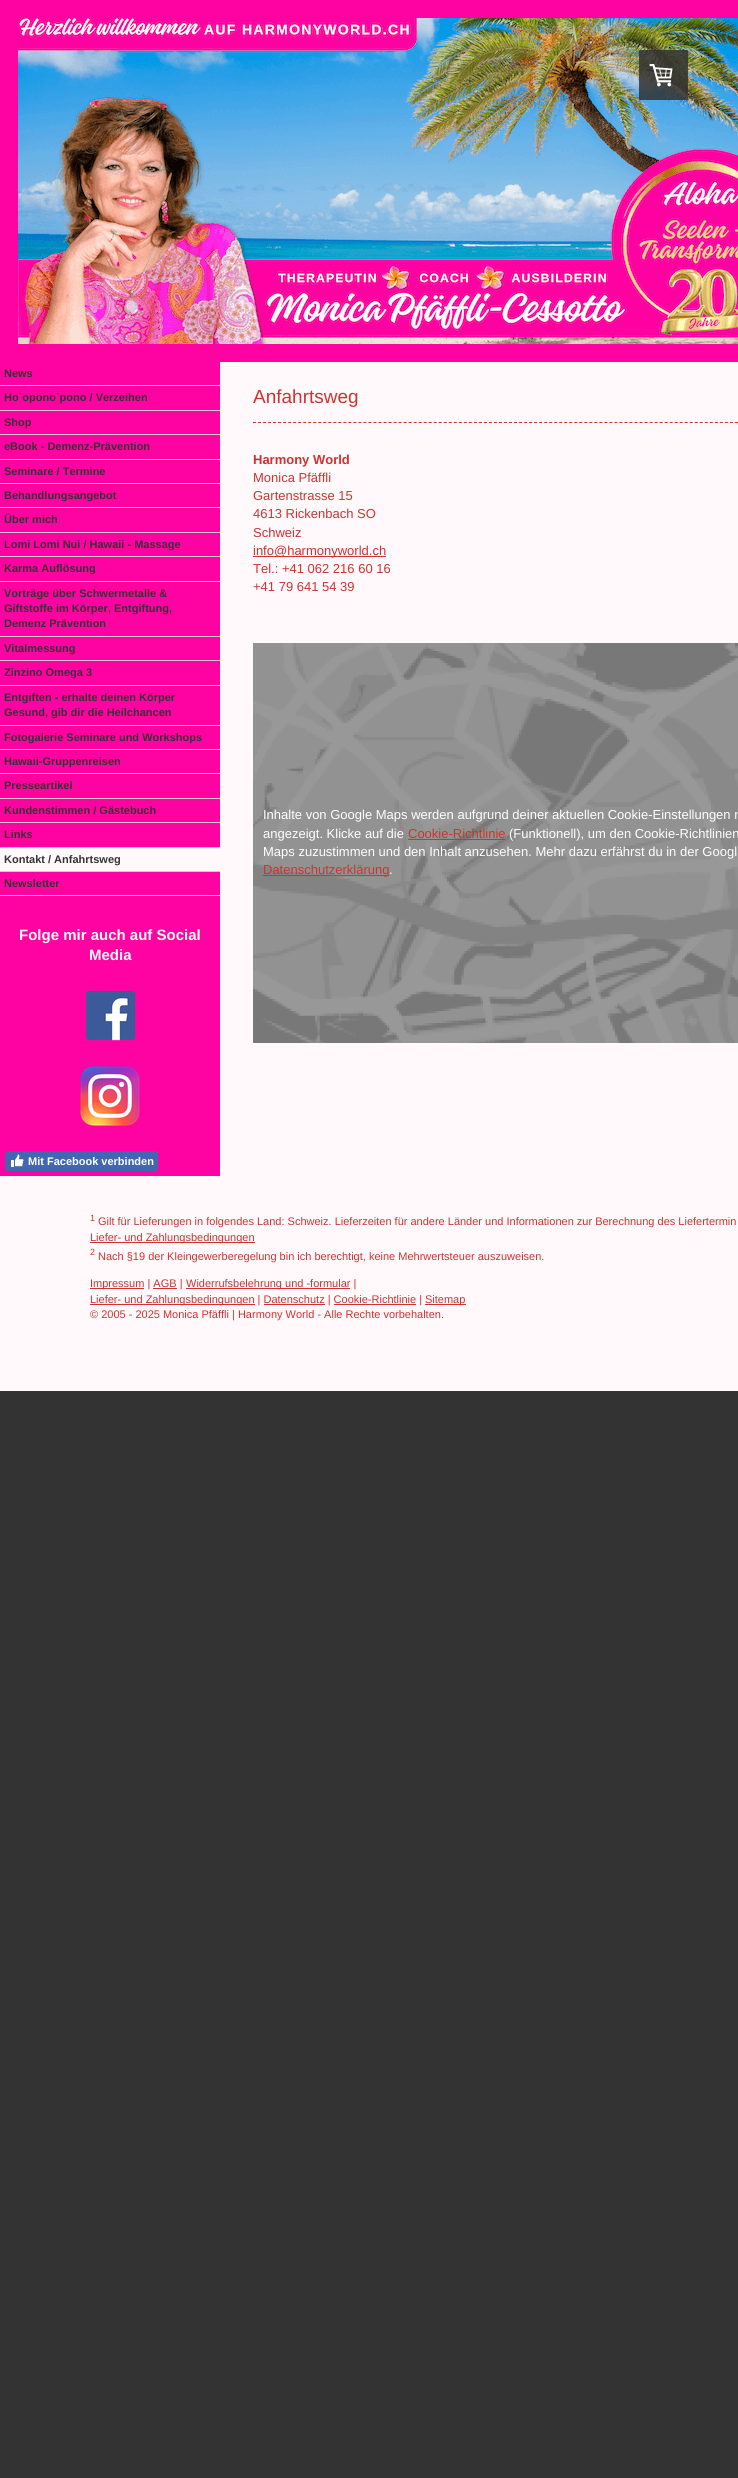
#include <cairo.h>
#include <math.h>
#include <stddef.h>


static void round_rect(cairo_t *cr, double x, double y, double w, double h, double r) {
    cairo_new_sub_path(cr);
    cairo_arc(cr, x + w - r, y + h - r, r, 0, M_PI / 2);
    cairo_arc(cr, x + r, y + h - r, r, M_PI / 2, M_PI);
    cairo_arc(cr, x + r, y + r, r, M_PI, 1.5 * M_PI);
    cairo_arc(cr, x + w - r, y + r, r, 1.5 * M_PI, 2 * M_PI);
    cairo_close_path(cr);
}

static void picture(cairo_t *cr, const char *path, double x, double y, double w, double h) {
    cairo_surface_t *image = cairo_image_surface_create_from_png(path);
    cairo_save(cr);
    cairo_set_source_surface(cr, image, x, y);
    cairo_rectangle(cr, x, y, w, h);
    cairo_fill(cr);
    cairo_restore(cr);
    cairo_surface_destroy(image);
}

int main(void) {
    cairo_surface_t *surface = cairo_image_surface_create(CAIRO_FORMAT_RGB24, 738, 2478);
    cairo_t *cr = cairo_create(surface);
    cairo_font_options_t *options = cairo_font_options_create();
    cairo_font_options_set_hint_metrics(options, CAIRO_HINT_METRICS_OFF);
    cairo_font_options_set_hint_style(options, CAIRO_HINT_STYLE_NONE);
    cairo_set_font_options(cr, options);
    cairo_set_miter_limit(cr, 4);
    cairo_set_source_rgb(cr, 0.2, 0.2, 0.2);
    cairo_paint(cr);
    cairo_set_source_rgb(cr, 1, 0.976, 0.988);
    cairo_rectangle(cr, 0, 362, 738, 1029);
    cairo_fill(cr);
    cairo_set_source_rgb(cr, 1, 0.008, 0.631);
    cairo_rectangle(cr, 0, 0, 738, 362);
    cairo_fill(cr);
    picture(cr, "img1.png", 18, 18, 720, 326);
    cairo_rectangle(cr, 0, 362, 220, 814);
    cairo_fill(cr);
    cairo_set_source_rgb(cr, 0.8, 0.8, 0.8);
    cairo_rectangle(cr, 0, 385, 220, 1);
    cairo_fill(cr);
    cairo_select_font_face(cr, "Liberation Sans", CAIRO_FONT_SLANT_NORMAL, CAIRO_FONT_WEIGHT_BOLD);
    cairo_set_font_size(cr, 11);
    cairo_set_source_rgb(cr, 0.2, 0.2, 0.2);
    cairo_move_to(cr, 4, 377);
    cairo_show_text(cr, "News");
    cairo_set_source_rgb(cr, 0.8, 0.8, 0.8);
    cairo_rectangle(cr, 0, 410, 220, 1);
    cairo_fill(cr);
    cairo_set_source_rgb(cr, 0.2, 0.2, 0.2);
    cairo_move_to(cr, 4, 401);
    cairo_show_text(cr, "Ho`opono`pono / Verzeihen");
    cairo_set_source_rgb(cr, 0.8, 0.8, 0.8);
    cairo_rectangle(cr, 0, 434, 220, 1);
    cairo_fill(cr);
    cairo_set_source_rgb(cr, 0.2, 0.2, 0.2);
    cairo_move_to(cr, 4, 426);
    cairo_show_text(cr, "Shop");
    cairo_set_source_rgb(cr, 0.8, 0.8, 0.8);
    cairo_rectangle(cr, 0, 459, 220, 1);
    cairo_fill(cr);
    cairo_set_source_rgb(cr, 0.2, 0.2, 0.2);
    cairo_move_to(cr, 4, 450);
    cairo_show_text(cr, "eBook - Demenz-Prävention");
    cairo_set_source_rgb(cr, 0.8, 0.8, 0.8);
    cairo_rectangle(cr, 0, 483, 220, 1);
    cairo_fill(cr);
    cairo_set_source_rgb(cr, 0.2, 0.2, 0.2);
    cairo_move_to(cr, 4, 475);
    cairo_show_text(cr, "Seminare / Termine");
    cairo_set_source_rgb(cr, 0.8, 0.8, 0.8);
    cairo_rectangle(cr, 0, 507, 220, 1);
    cairo_fill(cr);
    cairo_set_source_rgb(cr, 0.2, 0.2, 0.2);
    cairo_move_to(cr, 4, 499);
    cairo_show_text(cr, "Behandlungsangebot");
    cairo_set_source_rgb(cr, 0.8, 0.8, 0.8);
    cairo_rectangle(cr, 0, 532, 220, 1);
    cairo_fill(cr);
    cairo_set_source_rgb(cr, 0.2, 0.2, 0.2);
    cairo_move_to(cr, 4, 523);
    cairo_show_text(cr, "Über mich");
    cairo_set_source_rgb(cr, 0.8, 0.8, 0.8);
    cairo_rectangle(cr, 0, 556, 220, 1);
    cairo_fill(cr);
    cairo_set_source_rgb(cr, 0.2, 0.2, 0.2);
    cairo_move_to(cr, 4, 548);
    cairo_show_text(cr, "Lomi Lomi Nui / Hawaii - Massage");
    cairo_set_source_rgb(cr, 0.8, 0.8, 0.8);
    cairo_rectangle(cr, 0, 581, 220, 1);
    cairo_fill(cr);
    cairo_set_source_rgb(cr, 0.2, 0.2, 0.2);
    cairo_move_to(cr, 4, 572);
    cairo_show_text(cr, "Karma Auflösung");
    cairo_set_source_rgb(cr, 0.8, 0.8, 0.8);
    cairo_rectangle(cr, 0, 636, 220, 1);
    cairo_fill(cr);
    cairo_set_source_rgb(cr, 0.2, 0.2, 0.2);
    cairo_move_to(cr, 4, 597);
    cairo_show_text(cr, "Vorträge über Schwermetalle &");
    cairo_move_to(cr, 4, 612);
    cairo_show_text(cr, "Giftstoffe im Körper, Entgiftung,");
    cairo_move_to(cr, 4, 627);
    cairo_show_text(cr, "Demenz Prävention");
    cairo_set_source_rgb(cr, 0.8, 0.8, 0.8);
    cairo_rectangle(cr, 0, 660, 220, 1);
    cairo_fill(cr);
    cairo_set_source_rgb(cr, 0.2, 0.2, 0.2);
    cairo_move_to(cr, 4, 652);
    cairo_show_text(cr, "Vitalmessung");
    cairo_set_source_rgb(cr, 0.8, 0.8, 0.8);
    cairo_rectangle(cr, 0, 685, 220, 1);
    cairo_fill(cr);
    cairo_set_source_rgb(cr, 0.2, 0.2, 0.2);
    cairo_move_to(cr, 4, 676);
    cairo_show_text(cr, "Zinzino Omega 3");
    cairo_set_source_rgb(cr, 0.8, 0.8, 0.8);
    cairo_rectangle(cr, 0, 725, 220, 1);
    cairo_fill(cr);
    cairo_set_source_rgb(cr, 0.2, 0.2, 0.2);
    cairo_move_to(cr, 4, 701);
    cairo_show_text(cr, "Entgiften - erhalte deinen Körper");
    cairo_move_to(cr, 4, 716);
    cairo_show_text(cr, "Gesund, gib dir die Heilchancen");
    cairo_set_source_rgb(cr, 0.8, 0.8, 0.8);
    cairo_rectangle(cr, 0, 749, 220, 1);
    cairo_fill(cr);
    cairo_set_source_rgb(cr, 0.2, 0.2, 0.2);
    cairo_move_to(cr, 4, 741);
    cairo_show_text(cr, "Fotogalerie Seminare und Workshops");
    cairo_set_source_rgb(cr, 0.8, 0.8, 0.8);
    cairo_rectangle(cr, 0, 773, 220, 1);
    cairo_fill(cr);
    cairo_set_source_rgb(cr, 0.2, 0.2, 0.2);
    cairo_move_to(cr, 4, 765);
    cairo_show_text(cr, "Hawaii-Gruppenreisen");
    cairo_set_source_rgb(cr, 0.8, 0.8, 0.8);
    cairo_rectangle(cr, 0, 798, 220, 1);
    cairo_fill(cr);
    cairo_set_source_rgb(cr, 0.2, 0.2, 0.2);
    cairo_move_to(cr, 4, 789);
    cairo_show_text(cr, "Presseartikel");
    cairo_set_source_rgb(cr, 0.8, 0.8, 0.8);
    cairo_rectangle(cr, 0, 822, 220, 1);
    cairo_fill(cr);
    cairo_set_source_rgb(cr, 0.2, 0.2, 0.2);
    cairo_move_to(cr, 4, 814);
    cairo_show_text(cr, "Kundenstimmen / Gästebuch");
    cairo_set_source_rgb(cr, 0.8, 0.8, 0.8);
    cairo_rectangle(cr, 0, 847, 220, 1);
    cairo_fill(cr);
    cairo_set_source_rgb(cr, 0.2, 0.2, 0.2);
    cairo_move_to(cr, 4, 838);
    cairo_show_text(cr, "Links");
    cairo_set_source_rgb(cr, 1, 0.976, 0.988);
    cairo_rectangle(cr, 0, 848, 220, 23);
    cairo_fill(cr);
    cairo_set_source_rgb(cr, 0.8, 0.8, 0.8);
    cairo_rectangle(cr, 0, 871, 220, 1);
    cairo_fill(cr);
    cairo_set_source_rgb(cr, 0.2, 0.2, 0.2);
    cairo_move_to(cr, 4, 863);
    cairo_show_text(cr, "Kontakt / Anfahrtsweg");
    cairo_set_source_rgb(cr, 0.8, 0.8, 0.8);
    cairo_rectangle(cr, 0, 895, 220, 1);
    cairo_fill(cr);
    cairo_set_source_rgb(cr, 0.2, 0.2, 0.2);
    cairo_move_to(cr, 4, 887);
    cairo_show_text(cr, "Newsletter");
    cairo_set_source_rgba(cr, 0.2, 0.2, 0.2, 0.85);
    round_rect(cr, 639, 50, 49, 50, 1);
    cairo_fill(cr);
    picture(cr, "img2.png", 649, 64, 24, 23);
    cairo_set_font_size(cr, 15);
    cairo_set_source_rgb(cr, 1, 1, 1);
    cairo_move_to(cr, 19, 940);
    cairo_show_text(cr, "Folge mir auch auf Social");
    cairo_move_to(cr, 89, 960);
    cairo_show_text(cr, "Media");
    picture(cr, "img3.png", 85, 990, 51, 51);
    picture(cr, "img4.png", 80, 1066, 60, 60);
    cairo_set_source_rgb(cr, 0.259, 0.404, 0.698);
    round_rect(cr, 5.5, 1151.5, 152, 19, 2.5);
    cairo_fill_preserve(cr);
    cairo_set_line_width(cr, 1);
    cairo_stroke(cr);
    picture(cr, "img5.png", 11, 1154, 13, 13);
    cairo_set_font_size(cr, 11);
    cairo_set_source_rgb(cr, 1, 1, 1);
    cairo_move_to(cr, 28, 1165);
    cairo_show_text(cr, "Mit Facebook verbinden");
    cairo_select_font_face(cr, "Liberation Sans", CAIRO_FONT_SLANT_NORMAL, CAIRO_FONT_WEIGHT_NORMAL);
    cairo_set_font_size(cr, 19);
    cairo_set_source_rgb(cr, 0.8, 0.2, 0.2);
    cairo_move_to(cr, 253, 403);
    cairo_show_text(cr, "Anfahrtsweg");
    cairo_new_path(cr);
    cairo_move_to(cr, 253, 422.5);
    cairo_line_to(cr, 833, 422.5);
    cairo_set_dash(cr, (double[]){3, 2.02}, 2, 0);
    cairo_stroke(cr);
    cairo_select_font_face(cr, "Liberation Sans", CAIRO_FONT_SLANT_NORMAL, CAIRO_FONT_WEIGHT_BOLD);
    cairo_set_font_size(cr, 13);
    cairo_move_to(cr, 253, 464);
    cairo_show_text(cr, "Harmony World");
    cairo_select_font_face(cr, "Liberation Sans", CAIRO_FONT_SLANT_NORMAL, CAIRO_FONT_WEIGHT_NORMAL);
    cairo_move_to(cr, 253, 482);
    cairo_show_text(cr, "Monica Pfäffli");
    cairo_move_to(cr, 253, 500);
    cairo_show_text(cr, "Gartenstrasse 15");
    cairo_move_to(cr, 253, 518);
    cairo_show_text(cr, "4613 Rickenbach SO");
    cairo_move_to(cr, 253, 537);
    cairo_show_text(cr, "Schweiz");
    cairo_rectangle(cr, 253, 556, 133, 1);
    cairo_fill(cr);
    cairo_move_to(cr, 253, 555);
    cairo_show_text(cr, "info@harmonyworld.ch");
    cairo_move_to(cr, 253, 573);
    cairo_show_text(cr, "Tel.: +41 062 216 60 16");
    cairo_move_to(cr, 253, 591);
    cairo_show_text(cr, "+41 79 641 54 39");
    picture(cr, "img6.png", 253, 643, 485, 400);
    cairo_set_source_rgb(cr, 1, 1, 1);
    cairo_move_to(cr, 263, 819);
    cairo_show_text(cr, "Inhalte von Google Maps werden aufgrund deiner aktuellen Cookie-Einstellungen n");
    cairo_move_to(cr, 263, 838);
    cairo_show_text(cr, "angezeigt. Klicke auf die");
    cairo_set_source_rgb(cr, 0.8, 0.2, 0.2);
    cairo_move_to(cr, 408, 838);
    cairo_show_text(cr, "Cookie-Richtlinie");
    cairo_rectangle(cr, 408, 839, 97, 1);
    cairo_fill(cr);
    cairo_set_source_rgb(cr, 1, 1, 1);
    cairo_move_to(cr, 509, 838);
    cairo_show_text(cr, "(Funktionell), um den Cookie-Richtlinien");
    cairo_move_to(cr, 263, 856);
    cairo_show_text(cr, "Maps zuzustimmen und den Inhalt anzusehen. Mehr dazu erfährst du in der Googl");
    cairo_set_source_rgb(cr, 0.8, 0.2, 0.2);
    cairo_rectangle(cr, 263, 875, 126, 1);
    cairo_fill(cr);
    cairo_move_to(cr, 263, 874);
    cairo_show_text(cr, "Datenschutzerklärung");
    cairo_set_source_rgb(cr, 1, 1, 1);
    cairo_move_to(cr, 389, 874);
    cairo_show_text(cr, ".");
    cairo_set_font_size(cr, 9);
    cairo_set_source_rgb(cr, 0.8, 0.2, 0.2);
    cairo_move_to(cr, 90, 1221);
    cairo_show_text(cr, "1");
    cairo_set_font_size(cr, 11);
    cairo_move_to(cr, 98, 1225);
    cairo_show_text(cr, "Gilt für Lieferungen in folgendes Land: Schweiz. Lieferzeiten für andere Länder und Informationen zur Berechnung des Liefertermin");
    cairo_rectangle(cr, 90, 1242, 165, 1);
    cairo_fill(cr);
    cairo_move_to(cr, 90, 1241);
    cairo_show_text(cr, "Liefer- und Zahlungsbedingungen");
    cairo_set_font_size(cr, 9);
    cairo_move_to(cr, 90, 1255);
    cairo_show_text(cr, "2");
    cairo_set_font_size(cr, 11);
    cairo_move_to(cr, 98, 1260);
    cairo_show_text(cr, "Nach §19 der Kleingewerberegelung bin ich berechtigt, keine Mehrwertsteuer auszuweisen.");
    cairo_rectangle(cr, 90, 1288, 54, 1);
    cairo_fill(cr);
    cairo_move_to(cr, 90, 1287);
    cairo_show_text(cr, "Impressum | AGB |");
    cairo_rectangle(cr, 186, 1288, 164, 1);
    cairo_fill(cr);
    cairo_move_to(cr, 186, 1287);
    cairo_show_text(cr, "Widerrufsbelehrung und -formular |");
    cairo_rectangle(cr, 153, 1288, 24, 1);
    cairo_fill(cr);
    cairo_rectangle(cr, 90, 1304, 165, 1);
    cairo_fill(cr);
    cairo_move_to(cr, 90, 1303);
    cairo_show_text(cr, "Liefer- und Zahlungsbedingungen | Datenschutz | Cookie-Richtlinie |");
    cairo_rectangle(cr, 425, 1304, 41, 1);
    cairo_fill(cr);
    cairo_move_to(cr, 425, 1303);
    cairo_show_text(cr, "Sitemap");
    cairo_rectangle(cr, 264, 1304, 61, 1);
    cairo_fill(cr);
    cairo_rectangle(cr, 334, 1304, 82, 1);
    cairo_fill(cr);
    cairo_move_to(cr, 90, 1318);
    cairo_show_text(cr, "© 2005 - 2025 Monica Pfäffli | Harmony World - Alle Rechte vorbehalten.");
    cairo_surface_write_to_png(surface, "page.png");
    cairo_font_options_destroy(options);
    cairo_destroy(cr);
    cairo_surface_destroy(surface);
    return 0;
}
